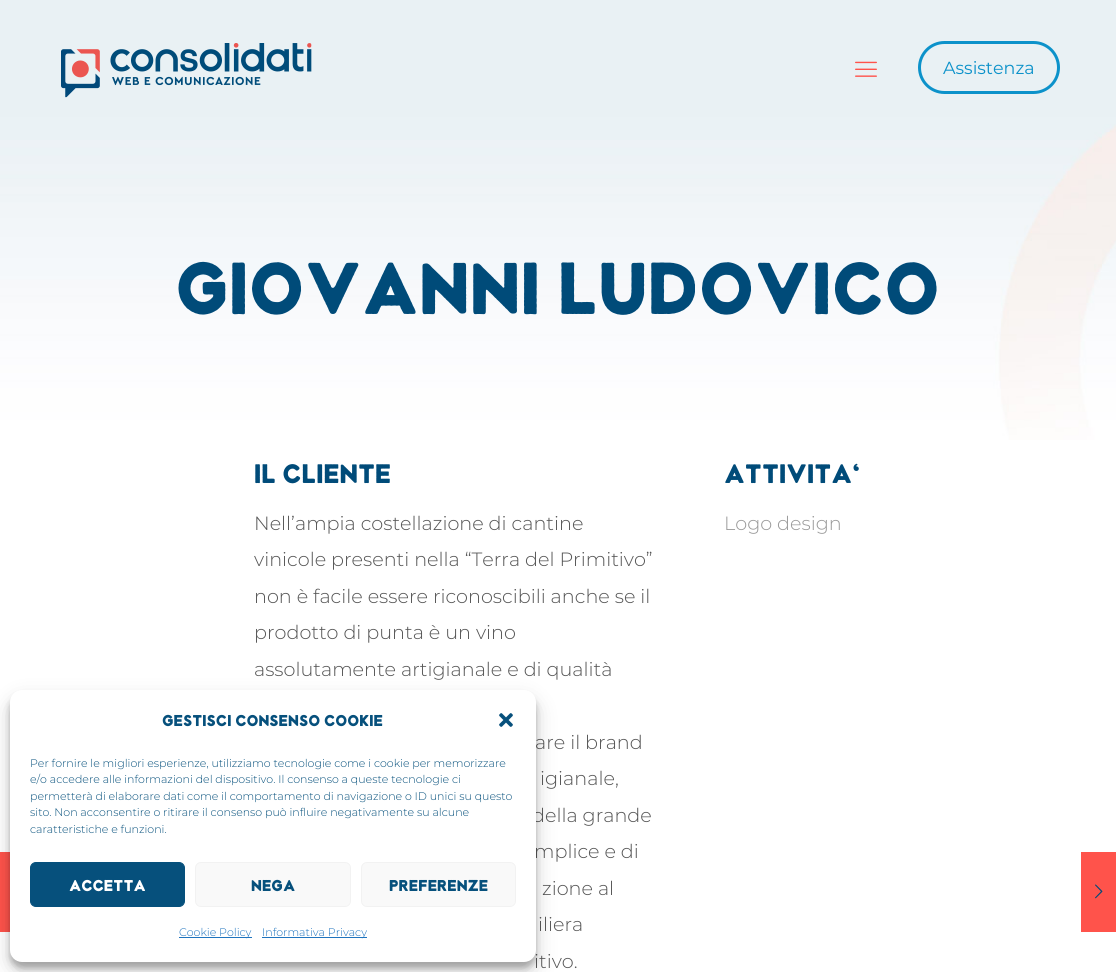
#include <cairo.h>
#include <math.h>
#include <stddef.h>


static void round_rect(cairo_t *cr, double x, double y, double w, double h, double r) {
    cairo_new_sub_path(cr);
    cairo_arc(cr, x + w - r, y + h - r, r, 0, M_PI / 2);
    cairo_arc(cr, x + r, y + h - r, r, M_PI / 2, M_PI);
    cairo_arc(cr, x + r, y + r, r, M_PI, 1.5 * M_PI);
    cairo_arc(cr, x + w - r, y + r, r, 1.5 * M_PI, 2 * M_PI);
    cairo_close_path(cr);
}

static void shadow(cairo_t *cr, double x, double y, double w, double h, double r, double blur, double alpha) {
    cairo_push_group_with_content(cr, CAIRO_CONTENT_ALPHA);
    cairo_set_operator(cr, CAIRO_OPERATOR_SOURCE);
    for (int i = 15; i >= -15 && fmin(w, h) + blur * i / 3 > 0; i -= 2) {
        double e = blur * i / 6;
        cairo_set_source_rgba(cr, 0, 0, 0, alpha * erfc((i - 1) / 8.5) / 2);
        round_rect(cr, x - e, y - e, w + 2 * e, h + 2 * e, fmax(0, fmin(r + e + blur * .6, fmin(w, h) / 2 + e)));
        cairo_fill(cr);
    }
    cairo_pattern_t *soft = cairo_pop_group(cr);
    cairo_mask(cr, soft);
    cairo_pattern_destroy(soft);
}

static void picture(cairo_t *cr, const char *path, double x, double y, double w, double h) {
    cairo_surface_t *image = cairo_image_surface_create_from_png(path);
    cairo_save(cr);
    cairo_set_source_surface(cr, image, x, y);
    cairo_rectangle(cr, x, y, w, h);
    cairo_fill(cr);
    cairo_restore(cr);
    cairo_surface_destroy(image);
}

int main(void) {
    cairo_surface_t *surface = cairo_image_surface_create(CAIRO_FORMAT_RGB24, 1116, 972);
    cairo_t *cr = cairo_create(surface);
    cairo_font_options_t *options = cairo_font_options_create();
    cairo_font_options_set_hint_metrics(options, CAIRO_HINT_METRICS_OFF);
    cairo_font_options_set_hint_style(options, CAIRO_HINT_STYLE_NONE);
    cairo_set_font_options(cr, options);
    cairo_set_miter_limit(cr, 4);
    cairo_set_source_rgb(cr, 1, 1, 1);
    cairo_paint(cr);
    picture(cr, "img3.png", 0, 0, 1116, 440);
    picture(cr, "img1.png", 61, 43, 251, 55);
    picture(cr, "img2.png", 855, 61, 22, 16);
    round_rect(cr, 919.5, 42.5, 139, 50, 25);
    cairo_set_source_rgb(cr, 0.047, 0.573, 0.792);
    cairo_set_line_width(cr, 3);
    cairo_stroke(cr);
    cairo_select_font_face(cr, "Montserrat", CAIRO_FONT_SLANT_NORMAL, CAIRO_FONT_WEIGHT_NORMAL);
    cairo_set_font_size(cr, 17.5);
    cairo_move_to(cr, 943, 74);
    cairo_show_text(cr, "Assistenza");
    cairo_select_font_face(cr, "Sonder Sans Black", CAIRO_FONT_SLANT_NORMAL, CAIRO_FONT_WEIGHT_NORMAL);
    cairo_set_font_size(cr, 70);
    cairo_set_source_rgb(cr, 0, 0.294, 0.475);
    cairo_move_to(cr, 175, 314);
    cairo_show_text(cr, "Giovanni Ludovico");
    cairo_set_font_size(cr, 25.5);
    cairo_move_to(cr, 254, 483);
    cairo_show_text(cr, "Il cliente");
    cairo_select_font_face(cr, "Montserrat Light", CAIRO_FONT_SLANT_NORMAL, CAIRO_FONT_WEIGHT_NORMAL);
    cairo_set_font_size(cr, 19.2);
    cairo_set_source_rgb(cr, 0.333, 0.333, 0.333);
    cairo_move_to(cr, 254, 530);
    cairo_show_text(cr, "Nell’ampia costellazione di cantine");
    cairo_move_to(cr, 254, 566);
    cairo_show_text(cr, "vinicole presenti nella “Terra del Primitivo”");
    cairo_move_to(cr, 254, 603);
    cairo_show_text(cr, "non è facile essere riconoscibili anche se il");
    cairo_move_to(cr, 254, 639);
    cairo_show_text(cr, "prodotto di punta è un vino");
    cairo_move_to(cr, 254, 676);
    cairo_show_text(cr, "assolutamente artigianale e di qualità");
    cairo_move_to(cr, 535, 749);
    cairo_show_text(cr, "are il brand");
    cairo_move_to(cr, 540, 785);
    cairo_show_text(cr, "igianale,");
    cairo_move_to(cr, 532, 822);
    cairo_show_text(cr, "della grande");
    cairo_move_to(cr, 534, 858);
    cairo_show_text(cr, "mplice e di");
    cairo_move_to(cr, 542, 895);
    cairo_show_text(cr, "zione al");
    cairo_move_to(cr, 538, 931);
    cairo_show_text(cr, "iliera");
    cairo_move_to(cr, 534, 968);
    cairo_show_text(cr, "itivo.");
    cairo_select_font_face(cr, "Sonder Sans Black", CAIRO_FONT_SLANT_NORMAL, CAIRO_FONT_WEIGHT_NORMAL);
    cairo_set_font_size(cr, 25.5);
    cairo_set_source_rgb(cr, 0, 0.294, 0.475);
    cairo_move_to(cr, 724, 483);
    cairo_show_text(cr, "attivita'");
    cairo_select_font_face(cr, "Montserrat Light", CAIRO_FONT_SLANT_NORMAL, CAIRO_FONT_WEIGHT_NORMAL);
    cairo_set_font_size(cr, 19.2);
    cairo_set_source_rgb(cr, 0.6, 0.6, 0.6);
    cairo_move_to(cr, 724, 530);
    cairo_show_text(cr, "Logo design");
    cairo_set_source_rgb(cr, 1, 0.325, 0.294);
    cairo_rectangle(cr, 0, 852, 10, 80);
    cairo_fill(cr);
    cairo_set_source_rgb(cr, 0, 0, 0);
    shadow(cr, 10, 696, 526, 272, 12, 3, 0.23);
    shadow(cr, 10, 700, 526, 272, 12, 10, 0.19);
    cairo_set_source_rgb(cr, 1, 1, 1);
    round_rect(cr, 10, 690, 526, 272, 12);
    cairo_fill(cr);
    cairo_select_font_face(cr, "Sonder Sans Black", CAIRO_FONT_SLANT_NORMAL, CAIRO_FONT_WEIGHT_NORMAL);
    cairo_set_font_size(cr, 15);
    cairo_set_source_rgb(cr, 0.027, 0.314, 0.486);
    cairo_move_to(cr, 162, 726);
    cairo_show_text(cr, "Gestisci Consenso Cookie");
    picture(cr, "img4.png", 499, 713, 14, 14);
    cairo_select_font_face(cr, "Montserrat Light", CAIRO_FONT_SLANT_NORMAL, CAIRO_FONT_WEIGHT_NORMAL);
    cairo_set_font_size(cr, 11);
    cairo_move_to(cr, 30, 767);
    cairo_show_text(cr, "Per fornire le migliori esperienze, utilizziamo tecnologie come i cookie per memorizzare");
    cairo_move_to(cr, 30, 783);
    cairo_show_text(cr, "e/o accedere alle informazioni del dispositivo. Il consenso a queste tecnologie ci");
    cairo_move_to(cr, 30, 800);
    cairo_show_text(cr, "permetterà di elaborare dati come il comportamento di navigazione o ID unici su questo");
    cairo_move_to(cr, 30, 816);
    cairo_show_text(cr, "sito. Non acconsentire o ritirare il consenso può influire negativamente su alcune");
    cairo_move_to(cr, 30, 833);
    cairo_show_text(cr, "caratteristiche e funzioni.");
    round_rect(cr, 30.5, 862.5, 154, 44, 5.5);
    cairo_fill_preserve(cr);
    cairo_set_line_width(cr, 1);
    cairo_stroke(cr);
    cairo_select_font_face(cr, "Sonder Sans Black", CAIRO_FONT_SLANT_NORMAL, CAIRO_FONT_WEIGHT_NORMAL);
    cairo_set_font_size(cr, 15);
    cairo_set_source_rgb(cr, 1, 1, 1);
    cairo_move_to(cr, 69, 891);
    cairo_show_text(cr, "Accetta");
    cairo_set_source_rgb(cr, 0.976, 0.976, 0.976);
    round_rect(cr, 195.5, 862.5, 155, 44, 5.5);
    cairo_fill_preserve(cr);
    cairo_set_source_rgb(cr, 0.949, 0.949, 0.949);
    cairo_stroke(cr);
    cairo_set_source_rgb(cr, 0.027, 0.314, 0.486);
    cairo_move_to(cr, 251, 891);
    cairo_show_text(cr, "Nega");
    cairo_set_source_rgb(cr, 0.976, 0.976, 0.976);
    round_rect(cr, 361.5, 862.5, 154, 44, 5.5);
    cairo_fill_preserve(cr);
    cairo_set_source_rgb(cr, 0.949, 0.949, 0.949);
    cairo_stroke(cr);
    cairo_set_source_rgb(cr, 0.027, 0.314, 0.486);
    cairo_move_to(cr, 389, 891);
    cairo_show_text(cr, "Preferenze");
    cairo_set_source_rgb(cr, 0.118, 0.451, 0.745);
    cairo_rectangle(cr, 179, 937, 73, 1);
    cairo_fill(cr);
    cairo_select_font_face(cr, "Montserrat Light", CAIRO_FONT_SLANT_NORMAL, CAIRO_FONT_WEIGHT_NORMAL);
    cairo_set_font_size(cr, 11);
    cairo_move_to(cr, 179, 936);
    cairo_show_text(cr, "Cookie Policy");
    cairo_rectangle(cr, 262, 937, 105, 1);
    cairo_fill(cr);
    cairo_move_to(cr, 262, 936);
    cairo_show_text(cr, "Informativa Privacy");
    cairo_set_source_rgb(cr, 1, 0.325, 0.294);
    cairo_rectangle(cr, 1081, 852, 35, 80);
    cairo_fill(cr);
    picture(cr, "img5.png", 1095, 884, 8, 15);
    cairo_surface_write_to_png(surface, "page.png");
    cairo_font_options_destroy(options);
    cairo_destroy(cr);
    cairo_surface_destroy(surface);
    return 0;
}
